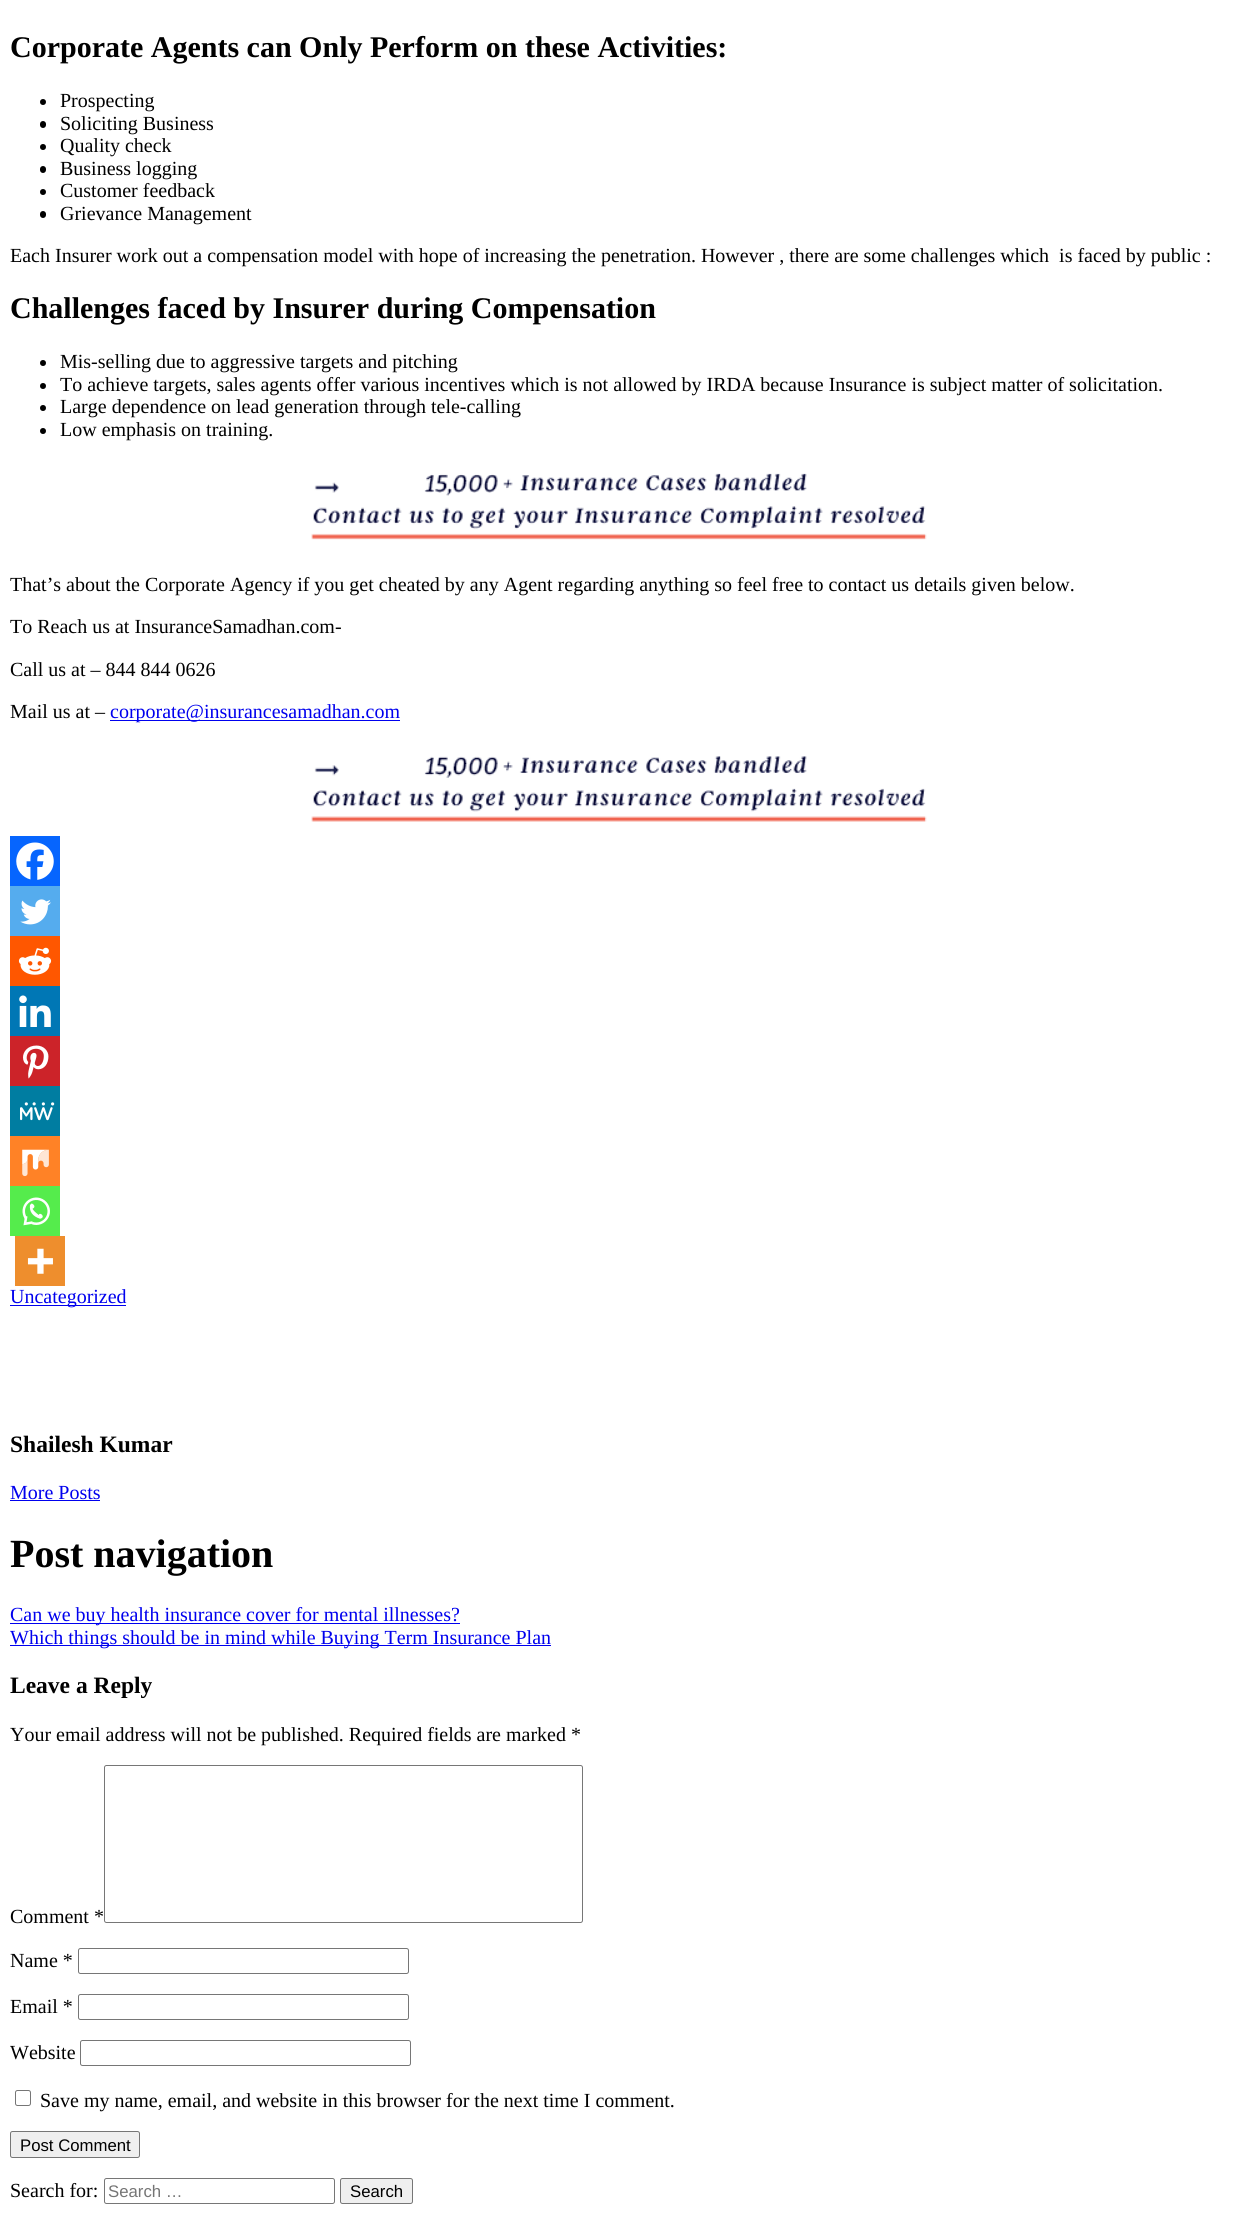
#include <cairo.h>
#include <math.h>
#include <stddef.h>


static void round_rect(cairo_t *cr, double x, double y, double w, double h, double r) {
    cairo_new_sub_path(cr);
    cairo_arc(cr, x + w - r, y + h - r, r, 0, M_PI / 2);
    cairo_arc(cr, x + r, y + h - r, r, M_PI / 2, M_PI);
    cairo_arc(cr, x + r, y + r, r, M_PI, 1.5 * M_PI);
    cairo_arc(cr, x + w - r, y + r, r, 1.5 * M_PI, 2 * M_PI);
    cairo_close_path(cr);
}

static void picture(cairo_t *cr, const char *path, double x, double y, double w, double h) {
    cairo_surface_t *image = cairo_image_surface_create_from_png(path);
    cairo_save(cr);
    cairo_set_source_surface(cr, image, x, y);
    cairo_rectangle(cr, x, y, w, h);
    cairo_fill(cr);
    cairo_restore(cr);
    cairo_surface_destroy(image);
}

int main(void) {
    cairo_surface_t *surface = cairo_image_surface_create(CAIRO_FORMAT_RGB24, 1241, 2217);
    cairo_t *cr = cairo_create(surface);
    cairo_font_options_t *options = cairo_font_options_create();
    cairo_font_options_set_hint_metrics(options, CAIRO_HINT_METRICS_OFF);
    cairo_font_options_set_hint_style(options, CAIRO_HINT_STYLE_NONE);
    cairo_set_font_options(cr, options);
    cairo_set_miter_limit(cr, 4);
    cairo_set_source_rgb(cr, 1, 1, 1);
    cairo_paint(cr);
    cairo_select_font_face(cr, "Liberation Serif", CAIRO_FONT_SLANT_NORMAL, CAIRO_FONT_WEIGHT_BOLD);
    cairo_set_font_size(cr, 30);
    cairo_set_source_rgb(cr, 0, 0, 0);
    cairo_move_to(cr, 10, 57);
    cairo_show_text(cr, "Corporate Agents can Only Perform on these Activities:");
    cairo_new_path(cr);
    cairo_arc(cr, 43, 102, 3, 0, 2 * M_PI);
    cairo_fill(cr);
    cairo_select_font_face(cr, "Liberation Serif", CAIRO_FONT_SLANT_NORMAL, CAIRO_FONT_WEIGHT_NORMAL);
    cairo_set_font_size(cr, 20);
    cairo_move_to(cr, 60, 107);
    cairo_show_text(cr, "Prospecting");
    round_rect(cr, 40, 121, 6, 7, 3);
    cairo_fill(cr);
    cairo_move_to(cr, 60, 130);
    cairo_show_text(cr, "Soliciting Business");
    cairo_new_path(cr);
    cairo_arc(cr, 43, 147, 3, 0, 2 * M_PI);
    cairo_fill(cr);
    cairo_move_to(cr, 60, 152);
    cairo_show_text(cr, "Quality check");
    round_rect(cr, 40, 166, 6, 7, 3);
    cairo_fill(cr);
    cairo_move_to(cr, 60, 175);
    cairo_show_text(cr, "Business logging");
    cairo_new_path(cr);
    cairo_arc(cr, 43, 192, 3, 0, 2 * M_PI);
    cairo_fill(cr);
    cairo_move_to(cr, 60, 197);
    cairo_show_text(cr, "Customer feedback");
    round_rect(cr, 40, 211, 6, 7, 3);
    cairo_fill(cr);
    cairo_move_to(cr, 60, 220);
    cairo_show_text(cr, "Grievance Management");
    cairo_move_to(cr, 10, 262);
    cairo_show_text(cr, "Each Insurer work out a compensation model with hope of increasing the penetration. However , there are some challenges which  is faced by public :");
    cairo_select_font_face(cr, "Liberation Serif", CAIRO_FONT_SLANT_NORMAL, CAIRO_FONT_WEIGHT_BOLD);
    cairo_set_font_size(cr, 30);
    cairo_move_to(cr, 10, 318);
    cairo_show_text(cr, "Challenges faced by Insurer during Compensation");
    cairo_new_path(cr);
    cairo_arc(cr, 43, 363, 3, 0, 2 * M_PI);
    cairo_fill(cr);
    cairo_select_font_face(cr, "Liberation Serif", CAIRO_FONT_SLANT_NORMAL, CAIRO_FONT_WEIGHT_NORMAL);
    cairo_set_font_size(cr, 20);
    cairo_move_to(cr, 60, 368);
    cairo_show_text(cr, "Mis-selling due to aggressive targets and pitching");
    cairo_new_path(cr);
    cairo_arc(cr, 43, 386, 3, 0, 2 * M_PI);
    cairo_fill(cr);
    cairo_move_to(cr, 60, 391);
    cairo_show_text(cr, "To achieve targets, sales agents offer various incentives which is not allowed by IRDA because Insurance is subject matter of solicitation.");
    cairo_new_path(cr);
    cairo_arc(cr, 43, 408, 3, 0, 2 * M_PI);
    cairo_fill(cr);
    cairo_move_to(cr, 60, 413);
    cairo_show_text(cr, "Large dependence on lead generation through tele-calling");
    cairo_new_path(cr);
    cairo_arc(cr, 43, 431, 3, 0, 2 * M_PI);
    cairo_fill(cr);
    cairo_move_to(cr, 60, 436);
    cairo_show_text(cr, "Low emphasis on training.");
    picture(cr, "img1.png", 311, 473, 616, 67);
    cairo_move_to(cr, 10, 591);
    cairo_show_text(cr, "That’s about the Corporate Agency if you get cheated by any Agent regarding anything so feel free to contact us details given below.");
    cairo_move_to(cr, 10, 633);
    cairo_show_text(cr, "To Reach us at InsuranceSamadhan.com-");
    cairo_move_to(cr, 10, 676);
    cairo_show_text(cr, "Call us at – 844 844 0626");
    cairo_move_to(cr, 10, 718);
    cairo_show_text(cr, "Mail us at –");
    cairo_set_source_rgb(cr, 0, 0, 0.933);
    cairo_rectangle(cr, 110, 720, 290, 1);
    cairo_fill(cr);
    cairo_move_to(cr, 110, 718);
    cairo_show_text(cr, "corporate@insurancesamadhan.com");
    picture(cr, "img2.png", 311, 756, 616, 66);
    cairo_set_source_rgb(cr, 0.027, 0.396, 0.996);
    cairo_rectangle(cr, 10, 836, 50, 50);
    cairo_fill(cr);
    picture(cr, "img3.png", 16, 842, 38, 38);
    cairo_set_source_rgb(cr, 0.333, 0.675, 0.933);
    cairo_rectangle(cr, 10, 886, 50, 50);
    cairo_fill(cr);
    picture(cr, "img4.png", 20, 899, 31, 26);
    cairo_set_source_rgb(cr, 1, 0.341, 0);
    cairo_rectangle(cr, 10, 936, 50, 50);
    cairo_fill(cr);
    picture(cr, "img5.png", 18, 947, 34, 28);
    cairo_set_source_rgb(cr, 0, 0.467, 0.71);
    cairo_rectangle(cr, 10, 986, 50, 50);
    cairo_fill(cr);
    picture(cr, "img6.png", 19, 995, 32, 32);
    cairo_set_source_rgb(cr, 0.8, 0.137, 0.161);
    cairo_rectangle(cr, 10, 1036, 50, 50);
    cairo_fill(cr);
    picture(cr, "img7.png", 23, 1045, 26, 34);
    cairo_set_source_rgb(cr, 0, 0.49, 0.631);
    cairo_rectangle(cr, 10, 1086, 50, 50);
    cairo_fill(cr);
    picture(cr, "img8.png", 20, 1102, 35, 19);
    cairo_set_source_rgb(cr, 1, 0.51, 0.149);
    cairo_rectangle(cr, 10, 1136, 50, 50);
    cairo_fill(cr);
    picture(cr, "img9.png", 22, 1149, 27, 28);
    cairo_set_source_rgb(cr, 0.333, 0.922, 0.298);
    cairo_rectangle(cr, 10, 1186, 50, 50);
    cairo_fill(cr);
    picture(cr, "img10.png", 22, 1197, 28, 29);
    cairo_set_source_rgb(cr, 0.933, 0.557, 0.176);
    cairo_rectangle(cr, 15, 1236, 50, 50);
    cairo_fill(cr);
    picture(cr, "img11.png", 27, 1248, 26, 26);
    cairo_set_source_rgb(cr, 0, 0, 0.933);
    cairo_rectangle(cr, 10, 1305, 116, 1);
    cairo_fill(cr);
    cairo_move_to(cr, 10, 1303);
    cairo_show_text(cr, "Uncategorized");
    cairo_select_font_face(cr, "Liberation Serif", CAIRO_FONT_SLANT_NORMAL, CAIRO_FONT_WEIGHT_BOLD);
    cairo_set_font_size(cr, 23.5);
    cairo_set_source_rgb(cr, 0, 0, 0);
    cairo_move_to(cr, 10, 1452);
    cairo_show_text(cr, "Shailesh Kumar");
    cairo_select_font_face(cr, "Liberation Serif", CAIRO_FONT_SLANT_NORMAL, CAIRO_FONT_WEIGHT_NORMAL);
    cairo_set_font_size(cr, 20);
    cairo_set_source_rgb(cr, 0, 0, 0.933);
    cairo_move_to(cr, 10, 1499);
    cairo_show_text(cr, "More Posts");
    cairo_rectangle(cr, 10, 1500, 90, 1);
    cairo_fill(cr);
    cairo_select_font_face(cr, "Liberation Serif", CAIRO_FONT_SLANT_NORMAL, CAIRO_FONT_WEIGHT_BOLD);
    cairo_set_font_size(cr, 40);
    cairo_set_source_rgb(cr, 0, 0, 0);
    cairo_move_to(cr, 10, 1567);
    cairo_show_text(cr, "Post navigation");
    cairo_set_source_rgb(cr, 0, 0, 0.933);
    cairo_rectangle(cr, 10, 1623, 450, 1);
    cairo_fill(cr);
    cairo_select_font_face(cr, "Liberation Serif", CAIRO_FONT_SLANT_NORMAL, CAIRO_FONT_WEIGHT_NORMAL);
    cairo_set_font_size(cr, 20);
    cairo_move_to(cr, 10, 1621);
    cairo_show_text(cr, "Can we buy health insurance cover for mental illnesses?");
    cairo_rectangle(cr, 10, 1645, 541, 1);
    cairo_fill(cr);
    cairo_move_to(cr, 10, 1644);
    cairo_show_text(cr, "Which things should be in mind while Buying Term Insurance Plan");
    cairo_select_font_face(cr, "Liberation Serif", CAIRO_FONT_SLANT_NORMAL, CAIRO_FONT_WEIGHT_BOLD);
    cairo_set_font_size(cr, 23.5);
    cairo_set_source_rgb(cr, 0, 0, 0);
    cairo_move_to(cr, 10, 1693);
    cairo_show_text(cr, "Leave a Reply");
    cairo_select_font_face(cr, "Liberation Serif", CAIRO_FONT_SLANT_NORMAL, CAIRO_FONT_WEIGHT_NORMAL);
    cairo_set_font_size(cr, 20);
    cairo_move_to(cr, 10, 1741);
    cairo_show_text(cr, "Your email address will not be published. Required fields are marked *");
    cairo_move_to(cr, 10, 1923);
    cairo_show_text(cr, "Comment *");
    round_rect(cr, 104.5, 1765.5, 478, 157, 2);
    cairo_set_source_rgb(cr, 0.463, 0.463, 0.463);
    cairo_set_line_width(cr, 1);
    cairo_stroke(cr);
    cairo_set_source_rgb(cr, 0, 0, 0);
    cairo_move_to(cr, 10, 1967);
    cairo_show_text(cr, "Name *");
    round_rect(cr, 78.5, 1948.5, 330, 25, 2);
    cairo_set_source_rgb(cr, 0.463, 0.463, 0.463);
    cairo_stroke(cr);
    cairo_set_source_rgb(cr, 0, 0, 0);
    cairo_move_to(cr, 10, 2013);
    cairo_show_text(cr, "Email *");
    round_rect(cr, 78.5, 1994.5, 330, 25, 2);
    cairo_set_source_rgb(cr, 0.463, 0.463, 0.463);
    cairo_stroke(cr);
    cairo_set_source_rgb(cr, 0, 0, 0);
    cairo_move_to(cr, 10, 2059);
    cairo_show_text(cr, "Website");
    round_rect(cr, 80.5, 2040.5, 330, 25, 2);
    cairo_set_source_rgb(cr, 0.463, 0.463, 0.463);
    cairo_stroke(cr);
    round_rect(cr, 15.5, 2090.5, 15, 15, 2);
    cairo_stroke(cr);
    cairo_set_source_rgb(cr, 0, 0, 0);
    cairo_move_to(cr, 40, 2107);
    cairo_show_text(cr, "Save my name, email, and website in this browser for the next time I comment.");
    cairo_set_source_rgb(cr, 0.937, 0.937, 0.937);
    round_rect(cr, 10.5, 2131.5, 129, 26, 2);
    cairo_fill_preserve(cr);
    cairo_set_source_rgb(cr, 0.463, 0.463, 0.463);
    cairo_stroke(cr);
    cairo_select_font_face(cr, "Liberation Sans", CAIRO_FONT_SLANT_NORMAL, CAIRO_FONT_WEIGHT_NORMAL);
    cairo_set_font_size(cr, 16.75);
    cairo_set_source_rgb(cr, 0, 0, 0);
    cairo_move_to(cr, 20, 2151);
    cairo_show_text(cr, "Post Comment");
    cairo_select_font_face(cr, "Liberation Serif", CAIRO_FONT_SLANT_NORMAL, CAIRO_FONT_WEIGHT_NORMAL);
    cairo_set_font_size(cr, 20);
    cairo_move_to(cr, 10, 2197);
    cairo_show_text(cr, "Search for:");
    round_rect(cr, 104.5, 2178.5, 230, 25, 2);
    cairo_set_source_rgb(cr, 0.463, 0.463, 0.463);
    cairo_stroke(cr);
    cairo_select_font_face(cr, "Liberation Sans", CAIRO_FONT_SLANT_NORMAL, CAIRO_FONT_WEIGHT_NORMAL);
    cairo_set_font_size(cr, 16.75);
    cairo_set_source_rgb(cr, 0.459, 0.459, 0.459);
    cairo_move_to(cr, 108, 2197);
    cairo_show_text(cr, "Search …");
    cairo_set_source_rgb(cr, 0.937, 0.937, 0.937);
    round_rect(cr, 340.5, 2178.5, 72, 25, 2);
    cairo_fill_preserve(cr);
    cairo_set_source_rgb(cr, 0.463, 0.463, 0.463);
    cairo_stroke(cr);
    cairo_set_source_rgb(cr, 0, 0, 0);
    cairo_move_to(cr, 350, 2197);
    cairo_show_text(cr, "Search");
    cairo_surface_write_to_png(surface, "page.png");
    cairo_font_options_destroy(options);
    cairo_destroy(cr);
    cairo_surface_destroy(surface);
    return 0;
}
